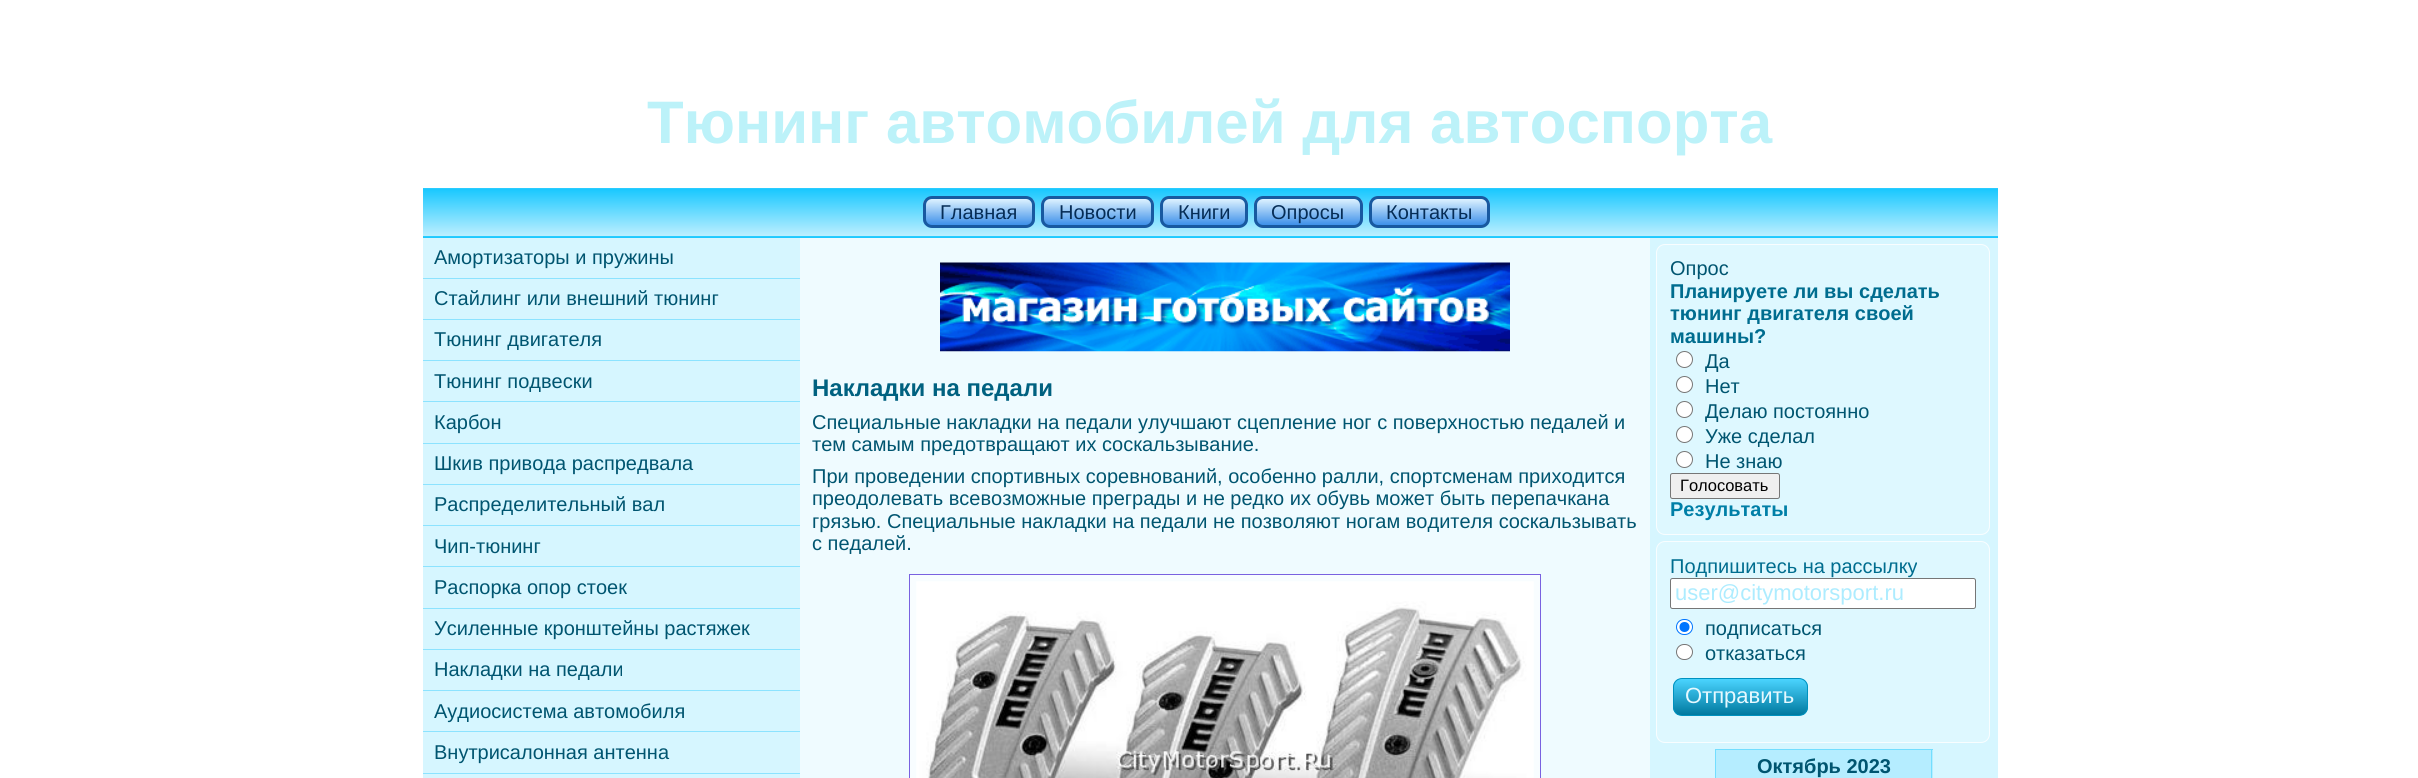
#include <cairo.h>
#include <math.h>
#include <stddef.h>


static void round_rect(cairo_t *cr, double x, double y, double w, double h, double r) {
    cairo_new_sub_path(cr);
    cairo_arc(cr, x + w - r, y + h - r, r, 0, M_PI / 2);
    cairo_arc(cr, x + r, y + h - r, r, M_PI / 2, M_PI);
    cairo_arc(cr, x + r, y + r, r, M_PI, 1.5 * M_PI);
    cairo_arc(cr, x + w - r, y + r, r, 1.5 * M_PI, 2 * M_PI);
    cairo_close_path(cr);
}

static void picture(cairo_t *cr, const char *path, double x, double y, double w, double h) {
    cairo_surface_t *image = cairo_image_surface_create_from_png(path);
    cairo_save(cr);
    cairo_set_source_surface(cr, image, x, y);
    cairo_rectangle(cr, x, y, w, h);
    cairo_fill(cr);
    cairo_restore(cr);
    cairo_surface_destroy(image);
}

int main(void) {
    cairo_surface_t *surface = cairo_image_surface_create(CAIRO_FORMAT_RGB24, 2418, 778);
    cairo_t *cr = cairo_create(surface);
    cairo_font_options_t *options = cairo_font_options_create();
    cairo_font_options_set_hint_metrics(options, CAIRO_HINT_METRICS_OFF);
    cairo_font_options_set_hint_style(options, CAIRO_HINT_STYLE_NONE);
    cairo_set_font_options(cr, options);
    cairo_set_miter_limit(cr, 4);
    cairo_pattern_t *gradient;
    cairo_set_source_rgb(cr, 1, 1, 1);
    cairo_paint(cr);
    cairo_select_font_face(cr, "Liberation Sans", CAIRO_FONT_SLANT_NORMAL, CAIRO_FONT_WEIGHT_BOLD);
    cairo_set_font_size(cr, 60);
    cairo_set_source_rgb(cr, 0.737, 0.949, 0.973);
    cairo_move_to(cr, 647, 143);
    cairo_show_text(cr, "Тюнинг автомобилей для автоспорта");
    gradient = cairo_pattern_create_linear(1210, 189, 1210, 236);
    cairo_pattern_add_color_stop_rgba(gradient, 0, 0.098, 0.784, 1, 1);
    cairo_pattern_add_color_stop_rgba(gradient, 1, 0.741, 0.937, 1, 1);
    cairo_set_source(cr, gradient);
    cairo_pattern_destroy(gradient);
    cairo_rectangle(cr, 423, 189, 1575, 47);
    cairo_fill(cr);
    gradient = cairo_pattern_create_linear(1210, 236, 1210, 284);
    cairo_pattern_add_color_stop_rgba(gradient, 0, 0.098, 0.784, 1, 1);
    cairo_pattern_add_color_stop_rgba(gradient, 1, 0.741, 0.937, 1, 1);
    cairo_set_source(cr, gradient);
    cairo_pattern_destroy(gradient);
    cairo_rectangle(cr, 423, 237, 1575, 1);
    cairo_fill(cr);
    cairo_set_source_rgb(cr, 0.161, 0.8, 1);
    cairo_rectangle(cr, 423, 188, 1575, 1);
    cairo_fill(cr);
    cairo_rectangle(cr, 423, 236, 1575, 1);
    cairo_fill(cr);
    cairo_save(cr);
    round_rect(cr, 923, 196, 112, 32, 9);
    cairo_clip(cr);
    gradient = cairo_pattern_create_linear(979, 199, 979, 225);
    cairo_pattern_add_color_stop_rgba(gradient, 0, 0.867, 0.949, 1, 1);
    cairo_pattern_add_color_stop_rgba(gradient, 1, 0.243, 0.565, 0.914, 1);
    cairo_set_source(cr, gradient);
    cairo_pattern_destroy(gradient);
    cairo_rectangle(cr, 923, 199, 112, 26);
    cairo_fill(cr);
    cairo_restore(cr);
    round_rect(cr, 924.5, 197.5, 109, 29, 7.5);
    cairo_set_source_rgb(cr, 0.094, 0.349, 0.627);
    cairo_set_line_width(cr, 3);
    cairo_stroke(cr);
    cairo_select_font_face(cr, "Liberation Sans", CAIRO_FONT_SLANT_NORMAL, CAIRO_FONT_WEIGHT_NORMAL);
    cairo_set_font_size(cr, 20);
    cairo_set_source_rgb(cr, 0.027, 0.176, 0.337);
    cairo_move_to(cr, 940, 219);
    cairo_show_text(cr, "Главная");
    cairo_save(cr);
    round_rect(cr, 1041, 196, 113, 32, 9);
    cairo_clip(cr);
    gradient = cairo_pattern_create_linear(1098, 199, 1098, 225);
    cairo_pattern_add_color_stop_rgba(gradient, 0, 0.867, 0.949, 1, 1);
    cairo_pattern_add_color_stop_rgba(gradient, 1, 0.243, 0.565, 0.914, 1);
    cairo_set_source(cr, gradient);
    cairo_pattern_destroy(gradient);
    cairo_rectangle(cr, 1041, 199, 113, 26);
    cairo_fill(cr);
    cairo_restore(cr);
    round_rect(cr, 1042.5, 197.5, 110, 29, 7.5);
    cairo_set_source_rgb(cr, 0.094, 0.349, 0.627);
    cairo_stroke(cr);
    cairo_set_source_rgb(cr, 0.027, 0.176, 0.337);
    cairo_move_to(cr, 1059, 219);
    cairo_show_text(cr, "Новости");
    cairo_save(cr);
    round_rect(cr, 1160, 196, 88, 32, 9);
    cairo_clip(cr);
    gradient = cairo_pattern_create_linear(1204, 199, 1204, 225);
    cairo_pattern_add_color_stop_rgba(gradient, 0, 0.867, 0.949, 1, 1);
    cairo_pattern_add_color_stop_rgba(gradient, 1, 0.243, 0.565, 0.914, 1);
    cairo_set_source(cr, gradient);
    cairo_pattern_destroy(gradient);
    cairo_rectangle(cr, 1160, 199, 88, 26);
    cairo_fill(cr);
    cairo_restore(cr);
    round_rect(cr, 1161.5, 197.5, 85, 29, 7.5);
    cairo_set_source_rgb(cr, 0.094, 0.349, 0.627);
    cairo_stroke(cr);
    cairo_set_source_rgb(cr, 0.027, 0.176, 0.337);
    cairo_move_to(cr, 1178, 219);
    cairo_show_text(cr, "Книги");
    cairo_save(cr);
    round_rect(cr, 1254, 196, 109, 32, 9);
    cairo_clip(cr);
    gradient = cairo_pattern_create_linear(1308, 199, 1308, 225);
    cairo_pattern_add_color_stop_rgba(gradient, 0, 0.867, 0.949, 1, 1);
    cairo_pattern_add_color_stop_rgba(gradient, 1, 0.243, 0.565, 0.914, 1);
    cairo_set_source(cr, gradient);
    cairo_pattern_destroy(gradient);
    cairo_rectangle(cr, 1254, 199, 109, 26);
    cairo_fill(cr);
    cairo_restore(cr);
    round_rect(cr, 1255.5, 197.5, 106, 29, 7.5);
    cairo_set_source_rgb(cr, 0.094, 0.349, 0.627);
    cairo_stroke(cr);
    cairo_set_source_rgb(cr, 0.027, 0.176, 0.337);
    cairo_move_to(cr, 1271, 219);
    cairo_show_text(cr, "Опросы");
    cairo_save(cr);
    round_rect(cr, 1369, 196, 121, 32, 9);
    cairo_clip(cr);
    gradient = cairo_pattern_create_linear(1429, 199, 1429, 225);
    cairo_pattern_add_color_stop_rgba(gradient, 0, 0.867, 0.949, 1, 1);
    cairo_pattern_add_color_stop_rgba(gradient, 1, 0.243, 0.565, 0.914, 1);
    cairo_set_source(cr, gradient);
    cairo_pattern_destroy(gradient);
    cairo_rectangle(cr, 1369, 199, 121, 26);
    cairo_fill(cr);
    cairo_restore(cr);
    round_rect(cr, 1370.5, 197.5, 118, 29, 7.5);
    cairo_set_source_rgb(cr, 0.094, 0.349, 0.627);
    cairo_stroke(cr);
    cairo_set_source_rgb(cr, 0.027, 0.176, 0.337);
    cairo_move_to(cr, 1386, 219);
    cairo_show_text(cr, "Контакты");
    cairo_set_source_rgb(cr, 0.839, 0.961, 1);
    cairo_rectangle(cr, 423, 238, 1575, 540);
    cairo_fill(cr);
    cairo_set_source_rgb(cr, 0.549, 0.89, 1);
    cairo_rectangle(cr, 423, 278, 377, 1);
    cairo_fill(cr);
    cairo_set_source_rgb(cr, 0, 0.333, 0.439);
    cairo_move_to(cr, 434, 264);
    cairo_show_text(cr, "Амортизаторы и пружины");
    cairo_set_source_rgb(cr, 0.549, 0.89, 1);
    cairo_rectangle(cr, 423, 319, 377, 1);
    cairo_fill(cr);
    cairo_set_source_rgb(cr, 0, 0.333, 0.439);
    cairo_move_to(cr, 434, 305);
    cairo_show_text(cr, "Стайлинг или внешний тюнинг");
    cairo_set_source_rgb(cr, 0.549, 0.89, 1);
    cairo_rectangle(cr, 423, 360, 377, 1);
    cairo_fill(cr);
    cairo_set_source_rgb(cr, 0, 0.333, 0.439);
    cairo_move_to(cr, 434, 346);
    cairo_show_text(cr, "Тюнинг двигателя");
    cairo_set_source_rgb(cr, 0.549, 0.89, 1);
    cairo_rectangle(cr, 423, 401, 377, 1);
    cairo_fill(cr);
    cairo_set_source_rgb(cr, 0, 0.333, 0.439);
    cairo_move_to(cr, 434, 388);
    cairo_show_text(cr, "Тюнинг подвески");
    cairo_set_source_rgb(cr, 0.549, 0.89, 1);
    cairo_rectangle(cr, 423, 443, 377, 1);
    cairo_fill(cr);
    cairo_set_source_rgb(cr, 0, 0.333, 0.439);
    cairo_move_to(cr, 434, 429);
    cairo_show_text(cr, "Карбон");
    cairo_set_source_rgb(cr, 0.549, 0.89, 1);
    cairo_rectangle(cr, 423, 484, 377, 1);
    cairo_fill(cr);
    cairo_set_source_rgb(cr, 0, 0.333, 0.439);
    cairo_move_to(cr, 434, 470);
    cairo_show_text(cr, "Шкив привода распредвала");
    cairo_set_source_rgb(cr, 0.549, 0.89, 1);
    cairo_rectangle(cr, 423, 525, 377, 1);
    cairo_fill(cr);
    cairo_set_source_rgb(cr, 0, 0.333, 0.439);
    cairo_move_to(cr, 434, 511);
    cairo_show_text(cr, "Распределительный вал");
    cairo_set_source_rgb(cr, 0.549, 0.89, 1);
    cairo_rectangle(cr, 423, 566, 377, 1);
    cairo_fill(cr);
    cairo_set_source_rgb(cr, 0, 0.333, 0.439);
    cairo_move_to(cr, 434, 553);
    cairo_show_text(cr, "Чип-тюнинг");
    cairo_set_source_rgb(cr, 0.549, 0.89, 1);
    cairo_rectangle(cr, 423, 608, 377, 1);
    cairo_fill(cr);
    cairo_set_source_rgb(cr, 0, 0.333, 0.439);
    cairo_move_to(cr, 434, 594);
    cairo_show_text(cr, "Распорка опор стоек");
    cairo_set_source_rgb(cr, 0.549, 0.89, 1);
    cairo_rectangle(cr, 423, 649, 377, 1);
    cairo_fill(cr);
    cairo_set_source_rgb(cr, 0, 0.333, 0.439);
    cairo_move_to(cr, 434, 635);
    cairo_show_text(cr, "Усиленные кронштейны растяжек");
    cairo_set_source_rgb(cr, 0.549, 0.89, 1);
    cairo_rectangle(cr, 423, 690, 377, 1);
    cairo_fill(cr);
    cairo_set_source_rgb(cr, 0, 0.333, 0.439);
    cairo_move_to(cr, 434, 676);
    cairo_show_text(cr, "Накладки на педали");
    cairo_set_source_rgb(cr, 0.549, 0.89, 1);
    cairo_rectangle(cr, 423, 731, 377, 1);
    cairo_fill(cr);
    cairo_set_source_rgb(cr, 0, 0.333, 0.439);
    cairo_move_to(cr, 434, 718);
    cairo_show_text(cr, "Аудиосистема автомобиля");
    cairo_set_source_rgb(cr, 0.549, 0.89, 1);
    cairo_rectangle(cr, 423, 773, 377, 1);
    cairo_fill(cr);
    cairo_set_source_rgb(cr, 0, 0.333, 0.439);
    cairo_move_to(cr, 434, 759);
    cairo_show_text(cr, "Внутрисалонная антенна");
    cairo_set_source_rgb(cr, 0.937, 0.984, 1);
    cairo_rectangle(cr, 800, 238, 850, 540);
    cairo_fill(cr);
    cairo_set_source_rgb(cr, 0.871, 0.969, 1);
    round_rect(cr, 1656.5, 244.5, 333, 290, 8.5);
    cairo_fill_preserve(cr);
    cairo_set_source_rgb(cr, 0.969, 0.992, 1);
    cairo_set_line_width(cr, 1);
    cairo_stroke(cr);
    cairo_set_source_rgb(cr, 0, 0.333, 0.439);
    cairo_move_to(cr, 1670, 275);
    cairo_show_text(cr, "Опрос");
    cairo_select_font_face(cr, "Liberation Sans", CAIRO_FONT_SLANT_NORMAL, CAIRO_FONT_WEIGHT_BOLD);
    cairo_set_source_rgb(cr, 0, 0.427, 0.561);
    cairo_move_to(cr, 1670, 298);
    cairo_show_text(cr, "Планируете ли вы сделать");
    cairo_move_to(cr, 1670, 320);
    cairo_show_text(cr, "тюнинг двигателя своей");
    cairo_move_to(cr, 1670, 343);
    cairo_show_text(cr, "машины?");
    cairo_set_source_rgb(cr, 1, 1, 1);
    cairo_new_path(cr);
    cairo_arc(cr, 1684.5, 359.5, 8, 0, 2 * M_PI);
    cairo_fill_preserve(cr);
    cairo_set_source_rgb(cr, 0.463, 0.463, 0.463);
    cairo_stroke(cr);
    cairo_select_font_face(cr, "Liberation Sans", CAIRO_FONT_SLANT_NORMAL, CAIRO_FONT_WEIGHT_NORMAL);
    cairo_set_source_rgb(cr, 0, 0.333, 0.439);
    cairo_move_to(cr, 1705, 368);
    cairo_show_text(cr, "Да");
    cairo_set_source_rgb(cr, 1, 1, 1);
    cairo_new_path(cr);
    cairo_arc(cr, 1684.5, 384.5, 8, 0, 2 * M_PI);
    cairo_fill_preserve(cr);
    cairo_set_source_rgb(cr, 0.463, 0.463, 0.463);
    cairo_stroke(cr);
    cairo_set_source_rgb(cr, 0, 0.333, 0.439);
    cairo_move_to(cr, 1705, 393);
    cairo_show_text(cr, "Нет");
    cairo_set_source_rgb(cr, 1, 1, 1);
    cairo_new_path(cr);
    cairo_arc(cr, 1684.5, 409.5, 8, 0, 2 * M_PI);
    cairo_fill_preserve(cr);
    cairo_set_source_rgb(cr, 0.463, 0.463, 0.463);
    cairo_stroke(cr);
    cairo_set_source_rgb(cr, 0, 0.333, 0.439);
    cairo_move_to(cr, 1705, 418);
    cairo_show_text(cr, "Делаю постоянно");
    cairo_set_source_rgb(cr, 1, 1, 1);
    cairo_new_path(cr);
    cairo_arc(cr, 1684.5, 434.5, 8, 0, 2 * M_PI);
    cairo_fill_preserve(cr);
    cairo_set_source_rgb(cr, 0.463, 0.463, 0.463);
    cairo_stroke(cr);
    cairo_set_source_rgb(cr, 0, 0.333, 0.439);
    cairo_move_to(cr, 1705, 443);
    cairo_show_text(cr, "Уже сделал");
    cairo_set_source_rgb(cr, 1, 1, 1);
    cairo_new_path(cr);
    cairo_arc(cr, 1684.5, 459.5, 8, 0, 2 * M_PI);
    cairo_fill_preserve(cr);
    cairo_set_source_rgb(cr, 0.463, 0.463, 0.463);
    cairo_stroke(cr);
    cairo_set_source_rgb(cr, 0, 0.333, 0.439);
    cairo_move_to(cr, 1705, 468);
    cairo_show_text(cr, "Не знаю");
    cairo_set_source_rgb(cr, 0.937, 0.937, 0.937);
    round_rect(cr, 1670.5, 473.5, 109, 25, 2);
    cairo_fill_preserve(cr);
    cairo_set_source_rgb(cr, 0.463, 0.463, 0.463);
    cairo_stroke(cr);
    cairo_set_font_size(cr, 16.5);
    cairo_set_source_rgb(cr, 0, 0, 0);
    cairo_move_to(cr, 1680, 491);
    cairo_show_text(cr, "Голосовать");
    cairo_select_font_face(cr, "Liberation Sans", CAIRO_FONT_SLANT_NORMAL, CAIRO_FONT_WEIGHT_BOLD);
    cairo_set_font_size(cr, 20);
    cairo_set_source_rgb(cr, 0, 0.498, 0.655);
    cairo_move_to(cr, 1670, 516);
    cairo_show_text(cr, "Результаты");
    cairo_set_source_rgb(cr, 0.871, 0.969, 1);
    round_rect(cr, 1656.5, 541.5, 333, 201, 8.5);
    cairo_fill_preserve(cr);
    cairo_set_source_rgb(cr, 0.969, 0.992, 1);
    cairo_stroke(cr);
    cairo_select_font_face(cr, "Liberation Sans", CAIRO_FONT_SLANT_NORMAL, CAIRO_FONT_WEIGHT_NORMAL);
    cairo_set_source_rgb(cr, 0, 0.427, 0.561);
    cairo_move_to(cr, 1670, 573);
    cairo_show_text(cr, "Подпишитесь на рассылку");
    cairo_set_source_rgb(cr, 1, 1, 1);
    round_rect(cr, 1670.5, 578.5, 305, 30, 2);
    cairo_fill_preserve(cr);
    cairo_set_source_rgb(cr, 0.463, 0.463, 0.463);
    cairo_stroke(cr);
    cairo_set_font_size(cr, 22);
    cairo_set_source_rgb(cr, 0.678, 0.922, 1);
    cairo_move_to(cr, 1675, 600);
    cairo_show_text(cr, "user@citymotorsport.ru");
    cairo_set_source_rgb(cr, 1, 1, 1);
    round_rect(cr, 1676.5, 619.5, 16, 15, 7.5);
    cairo_fill_preserve(cr);
    cairo_set_source_rgb(cr, 0, 0.459, 1);
    cairo_stroke(cr);
    cairo_arc(cr, 1684.5, 627, 5, 0, 2 * M_PI);
    cairo_fill(cr);
    cairo_set_font_size(cr, 20);
    cairo_set_source_rgb(cr, 0, 0.333, 0.439);
    cairo_move_to(cr, 1705, 635);
    cairo_show_text(cr, "подписаться");
    cairo_set_source_rgb(cr, 1, 1, 1);
    round_rect(cr, 1676.5, 644.5, 16, 15, 7.5);
    cairo_fill_preserve(cr);
    cairo_set_source_rgb(cr, 0.463, 0.463, 0.463);
    cairo_stroke(cr);
    cairo_set_source_rgb(cr, 0, 0.333, 0.439);
    cairo_move_to(cr, 1705, 660);
    cairo_show_text(cr, "отказаться");
    cairo_save(cr);
    round_rect(cr, 1673, 678, 135, 38, 9);
    cairo_clip(cr);
    gradient = cairo_pattern_create_linear(1740, 679, 1740, 715);
    cairo_pattern_add_color_stop_rgba(gradient, 0, 0.29, 0.831, 1, 1);
    cairo_pattern_add_color_stop_rgba(gradient, 1, 0, 0.475, 0.624, 1);
    cairo_set_source(cr, gradient);
    cairo_pattern_destroy(gradient);
    cairo_rectangle(cr, 1673, 679, 135, 36);
    cairo_fill(cr);
    cairo_restore(cr);
    round_rect(cr, 1673.5, 678.5, 134, 37, 8.5);
    cairo_set_source_rgb(cr, 0, 0.573, 0.749);
    cairo_stroke(cr);
    cairo_set_font_size(cr, 22);
    cairo_set_source_rgb(cr, 0.902, 0.976, 1);
    cairo_move_to(cr, 1685, 703);
    cairo_show_text(cr, "Отправить");
    cairo_set_source_rgb(cr, 0.451, 0.871, 1);
    cairo_rectangle(cr, 1715, 749, 218, 1);
    cairo_fill(cr);
    cairo_set_source_rgb(cr, 0.71, 0.929, 1);
    cairo_rectangle(cr, 1716, 750, 217, 28);
    cairo_fill(cr);
    cairo_set_source_rgb(cr, 0.451, 0.871, 1);
    cairo_rectangle(cr, 1931, 749, 1, 29);
    cairo_fill(cr);
    cairo_rectangle(cr, 1715, 749, 1, 29);
    cairo_fill(cr);
    cairo_select_font_face(cr, "Liberation Sans", CAIRO_FONT_SLANT_NORMAL, CAIRO_FONT_WEIGHT_BOLD);
    cairo_set_font_size(cr, 20);
    cairo_set_source_rgb(cr, 0, 0.333, 0.439);
    cairo_move_to(cr, 1757, 773);
    cairo_show_text(cr, "Октябрь 2023");
    picture(cr, "img1.png", 940, 262, 570, 90);
    cairo_set_font_size(cr, 24);
    cairo_set_source_rgb(cr, 0, 0.38, 0.502);
    cairo_move_to(cr, 812, 396);
    cairo_show_text(cr, "Накладки на педали");
    cairo_select_font_face(cr, "Liberation Sans", CAIRO_FONT_SLANT_NORMAL, CAIRO_FONT_WEIGHT_NORMAL);
    cairo_set_font_size(cr, 20);
    cairo_set_source_rgb(cr, 0, 0.333, 0.439);
    cairo_move_to(cr, 812, 429);
    cairo_show_text(cr, "Специальные накладки на педали улучшают сцепление ног с поверхностью педалей и");
    cairo_move_to(cr, 812, 451);
    cairo_show_text(cr, "тем самым предотвращают их соскальзывание.");
    cairo_move_to(cr, 812, 483);
    cairo_show_text(cr, "При проведении спортивных соревнований, особенно ралли, спортсменам приходится");
    cairo_move_to(cr, 812, 505);
    cairo_show_text(cr, "преодолевать всевозможные преграды и не редко их обувь может быть перепачкана");
    cairo_move_to(cr, 812, 528);
    cairo_show_text(cr, "грязью. Специальные накладки на педали не позволяют ногам водителя соскальзывать");
    cairo_move_to(cr, 812, 550);
    cairo_show_text(cr, "с педалей.");
    cairo_set_source_rgb(cr, 0.969, 0.992, 1);
    cairo_rectangle(cr, 909.5, 574.5, 631, 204);
    cairo_fill_preserve(cr);
    cairo_set_source_rgb(cr, 0.475, 0.38, 0.878);
    cairo_stroke(cr);
    picture(cr, "img2.png", 916, 581, 618, 197);
    cairo_surface_write_to_png(surface, "page.png");
    cairo_font_options_destroy(options);
    cairo_destroy(cr);
    cairo_surface_destroy(surface);
    return 0;
}
